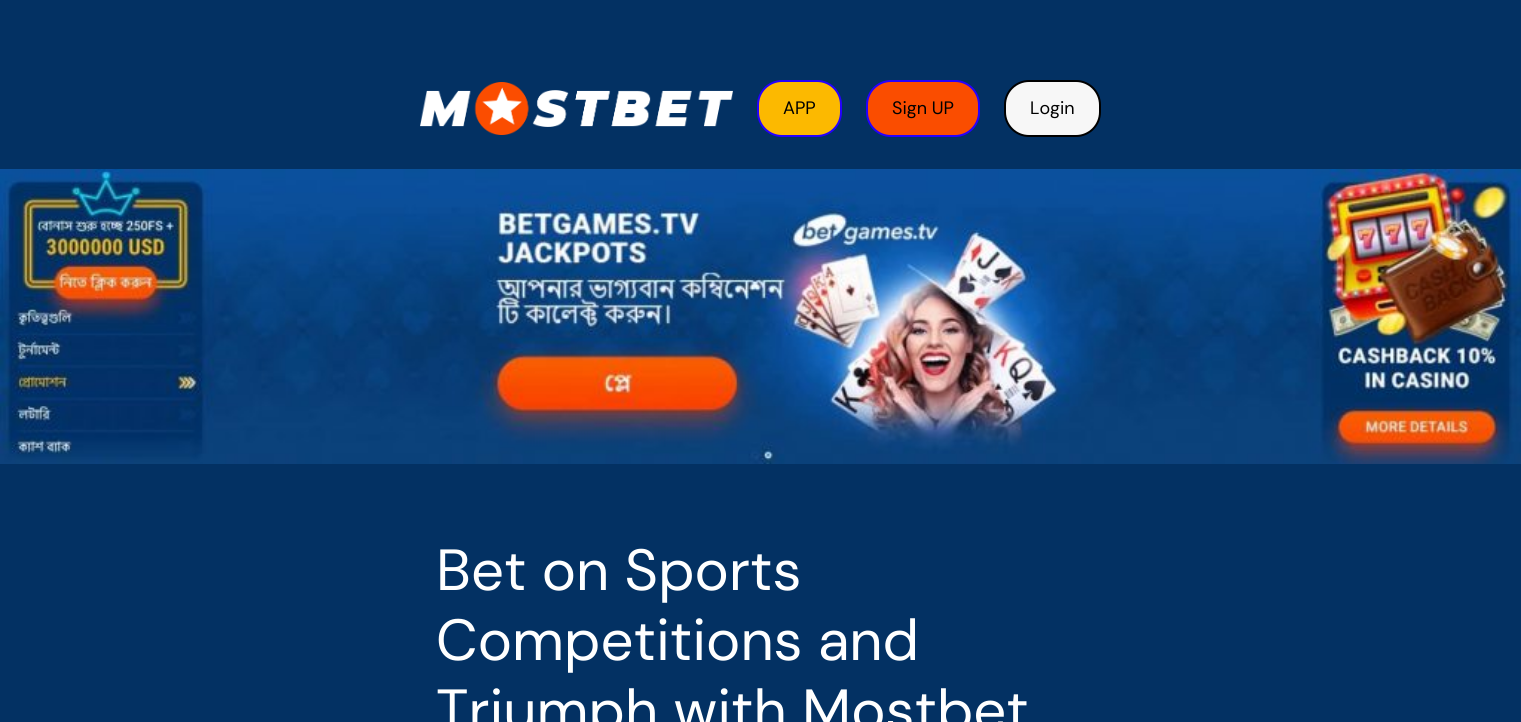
#include <cairo.h>
#include <math.h>
#include <stddef.h>


static void round_rect(cairo_t *cr, double x, double y, double w, double h, double r) {
    cairo_new_sub_path(cr);
    cairo_arc(cr, x + w - r, y + h - r, r, 0, M_PI / 2);
    cairo_arc(cr, x + r, y + h - r, r, M_PI / 2, M_PI);
    cairo_arc(cr, x + r, y + r, r, M_PI, 1.5 * M_PI);
    cairo_arc(cr, x + w - r, y + r, r, 1.5 * M_PI, 2 * M_PI);
    cairo_close_path(cr);
}

static void picture(cairo_t *cr, const char *path, double x, double y, double w, double h) {
    cairo_surface_t *image = cairo_image_surface_create_from_png(path);
    cairo_save(cr);
    cairo_set_source_surface(cr, image, x, y);
    cairo_rectangle(cr, x, y, w, h);
    cairo_fill(cr);
    cairo_restore(cr);
    cairo_surface_destroy(image);
}

int main(void) {
    cairo_surface_t *surface = cairo_image_surface_create(CAIRO_FORMAT_RGB24, 1521, 722);
    cairo_t *cr = cairo_create(surface);
    cairo_font_options_t *options = cairo_font_options_create();
    cairo_font_options_set_hint_metrics(options, CAIRO_HINT_METRICS_OFF);
    cairo_font_options_set_hint_style(options, CAIRO_HINT_STYLE_NONE);
    cairo_set_font_options(cr, options);
    cairo_set_miter_limit(cr, 4);
    cairo_set_source_rgb(cr, 0.012, 0.192, 0.388);
    cairo_paint(cr);
    picture(cr, "img1.png", 420, 82, 313, 53);
    cairo_set_source_rgb(cr, 0.988, 0.725, 0);
    round_rect(cr, 758, 81, 83, 55, 24);
    cairo_fill_preserve(cr);
    cairo_set_source_rgb(cr, 0.145, 0, 1);
    cairo_stroke(cr);
    cairo_select_font_face(cr, "DM Sans", CAIRO_FONT_SLANT_NORMAL, CAIRO_FONT_WEIGHT_NORMAL);
    cairo_set_font_size(cr, 18);
    cairo_set_source_rgb(cr, 0, 0, 0);
    cairo_move_to(cr, 783, 114);
    cairo_show_text(cr, "APP");
    cairo_set_source_rgb(cr, 0.98, 0.302, 0);
    round_rect(cr, 867, 81, 112, 55, 24);
    cairo_fill_preserve(cr);
    cairo_set_source_rgb(cr, 0.145, 0, 1);
    cairo_stroke(cr);
    cairo_set_source_rgb(cr, 0, 0, 0);
    cairo_move_to(cr, 892, 114);
    cairo_show_text(cr, "Sign UP");
    cairo_set_source_rgb(cr, 0.965, 0.965, 0.965);
    round_rect(cr, 1005, 81, 95, 55, 24);
    cairo_fill_preserve(cr);
    cairo_set_source_rgb(cr, 0, 0, 0);
    cairo_stroke(cr);
    cairo_move_to(cr, 1030, 114);
    cairo_show_text(cr, "Login");
    picture(cr, "img2.png", 0, 169, 1521, 295);
    cairo_set_font_size(cr, 58);
    cairo_set_source_rgb(cr, 1, 1, 1);
    cairo_move_to(cr, 436, 590);
    cairo_show_text(cr, "Bet on Sports");
    cairo_move_to(cr, 436, 660);
    cairo_show_text(cr, "Competitions and");
    cairo_move_to(cr, 436, 730);
    cairo_show_text(cr, "Triumph with Mostbet");
    cairo_surface_write_to_png(surface, "page.png");
    cairo_font_options_destroy(options);
    cairo_destroy(cr);
    cairo_surface_destroy(surface);
    return 0;
}
